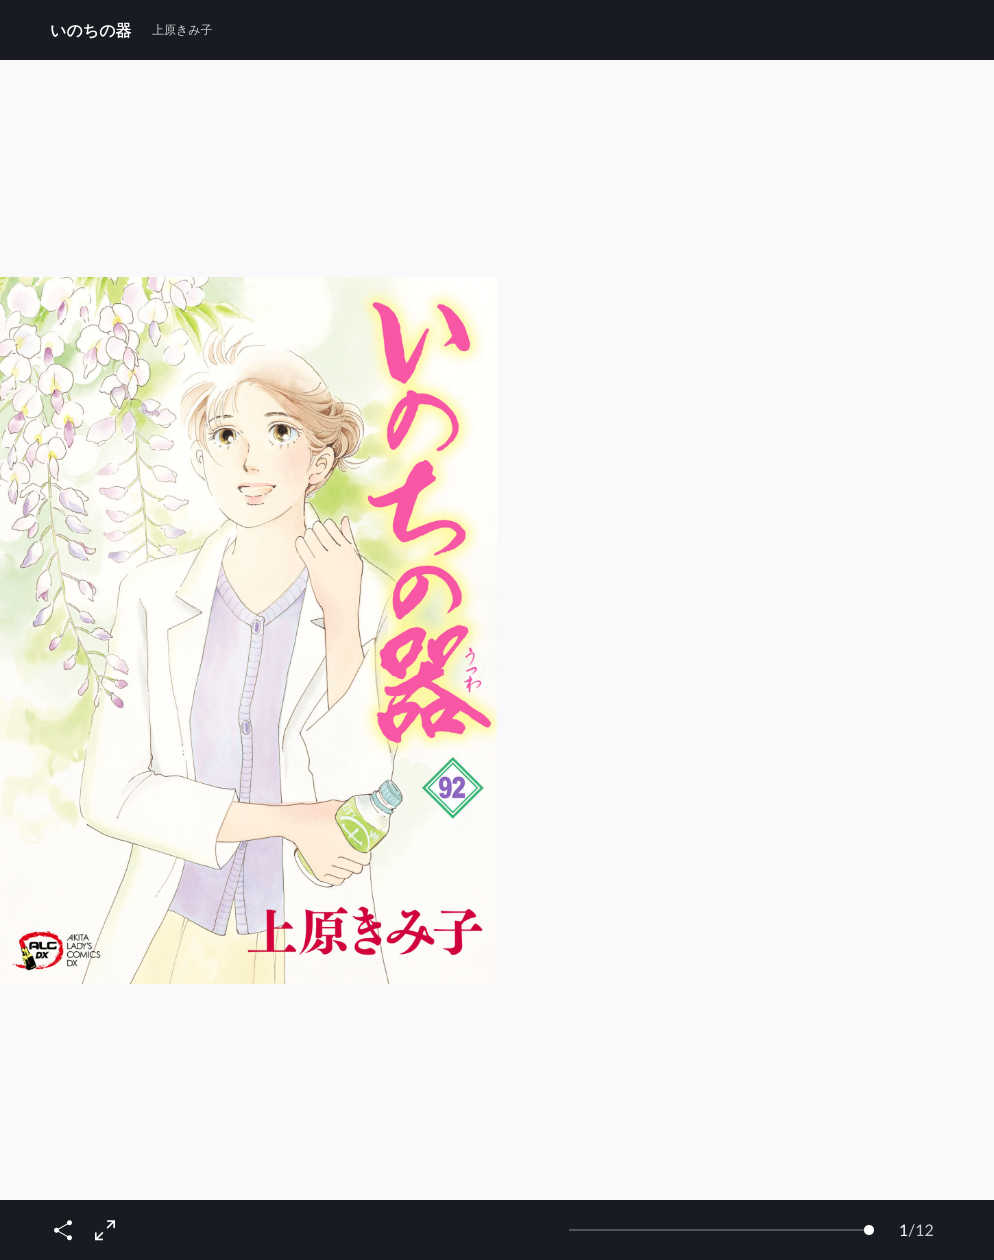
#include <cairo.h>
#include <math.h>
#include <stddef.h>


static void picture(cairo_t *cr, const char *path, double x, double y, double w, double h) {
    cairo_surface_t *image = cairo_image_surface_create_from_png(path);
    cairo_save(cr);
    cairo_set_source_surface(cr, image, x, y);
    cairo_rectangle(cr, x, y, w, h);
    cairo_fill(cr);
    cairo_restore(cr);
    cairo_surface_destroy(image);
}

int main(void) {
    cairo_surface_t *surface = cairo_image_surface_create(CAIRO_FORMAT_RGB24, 994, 1260);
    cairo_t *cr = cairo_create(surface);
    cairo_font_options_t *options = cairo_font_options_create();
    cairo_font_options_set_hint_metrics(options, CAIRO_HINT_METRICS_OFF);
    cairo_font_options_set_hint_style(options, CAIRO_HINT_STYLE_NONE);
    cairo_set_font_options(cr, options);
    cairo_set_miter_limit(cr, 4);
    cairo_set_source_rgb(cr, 0.976, 0.976, 0.984);
    cairo_paint(cr);
    cairo_set_source_rgb(cr, 0.094, 0.106, 0.129);
    cairo_rectangle(cr, 0, 0, 994, 60);
    cairo_fill(cr);
    cairo_select_font_face(cr, "WenQuanYi Zen Hei", CAIRO_FONT_SLANT_NORMAL, CAIRO_FONT_WEIGHT_BOLD);
    cairo_set_font_size(cr, 16);
    cairo_set_source_rgb(cr, 1, 1, 1);
    cairo_move_to(cr, 50, 36);
    cairo_show_text(cr, "いのちの器");
    cairo_select_font_face(cr, "WenQuanYi Zen Hei Medium", CAIRO_FONT_SLANT_NORMAL, CAIRO_FONT_WEIGHT_NORMAL);
    cairo_set_font_size(cr, 12);
    cairo_set_source_rgb(cr, 0.804, 0.808, 0.82);
    cairo_move_to(cr, 152, 34);
    cairo_show_text(cr, "上原きみ子");
    picture(cr, "img1.png", 0, 277, 497, 707);
    cairo_set_source_rgb(cr, 0.094, 0.106, 0.129);
    cairo_rectangle(cr, 0, 1200, 994, 60);
    cairo_fill(cr);
    picture(cr, "img2.png", 54, 1220, 18, 21);
    picture(cr, "img3.png", 95, 1220, 20, 21);
    cairo_set_source_rgb(cr, 0.314, 0.322, 0.337);
    cairo_rectangle(cr, 569, 1229, 300, 2);
    cairo_fill(cr);
    cairo_set_source_rgb(cr, 1, 1, 1);
    cairo_arc(cr, 869, 1230, 5, 0, 2 * M_PI);
    cairo_fill(cr);
    cairo_select_font_face(cr, "Lato", CAIRO_FONT_SLANT_NORMAL, CAIRO_FONT_WEIGHT_NORMAL);
    cairo_set_font_size(cr, 16);
    cairo_move_to(cr, 899, 1236);
    cairo_show_text(cr, "1");
    cairo_set_source_rgb(cr, 0.804, 0.808, 0.82);
    cairo_move_to(cr, 908, 1236);
    cairo_show_text(cr, "/12");
    cairo_surface_write_to_png(surface, "page.png");
    cairo_font_options_destroy(options);
    cairo_destroy(cr);
    cairo_surface_destroy(surface);
    return 0;
}
